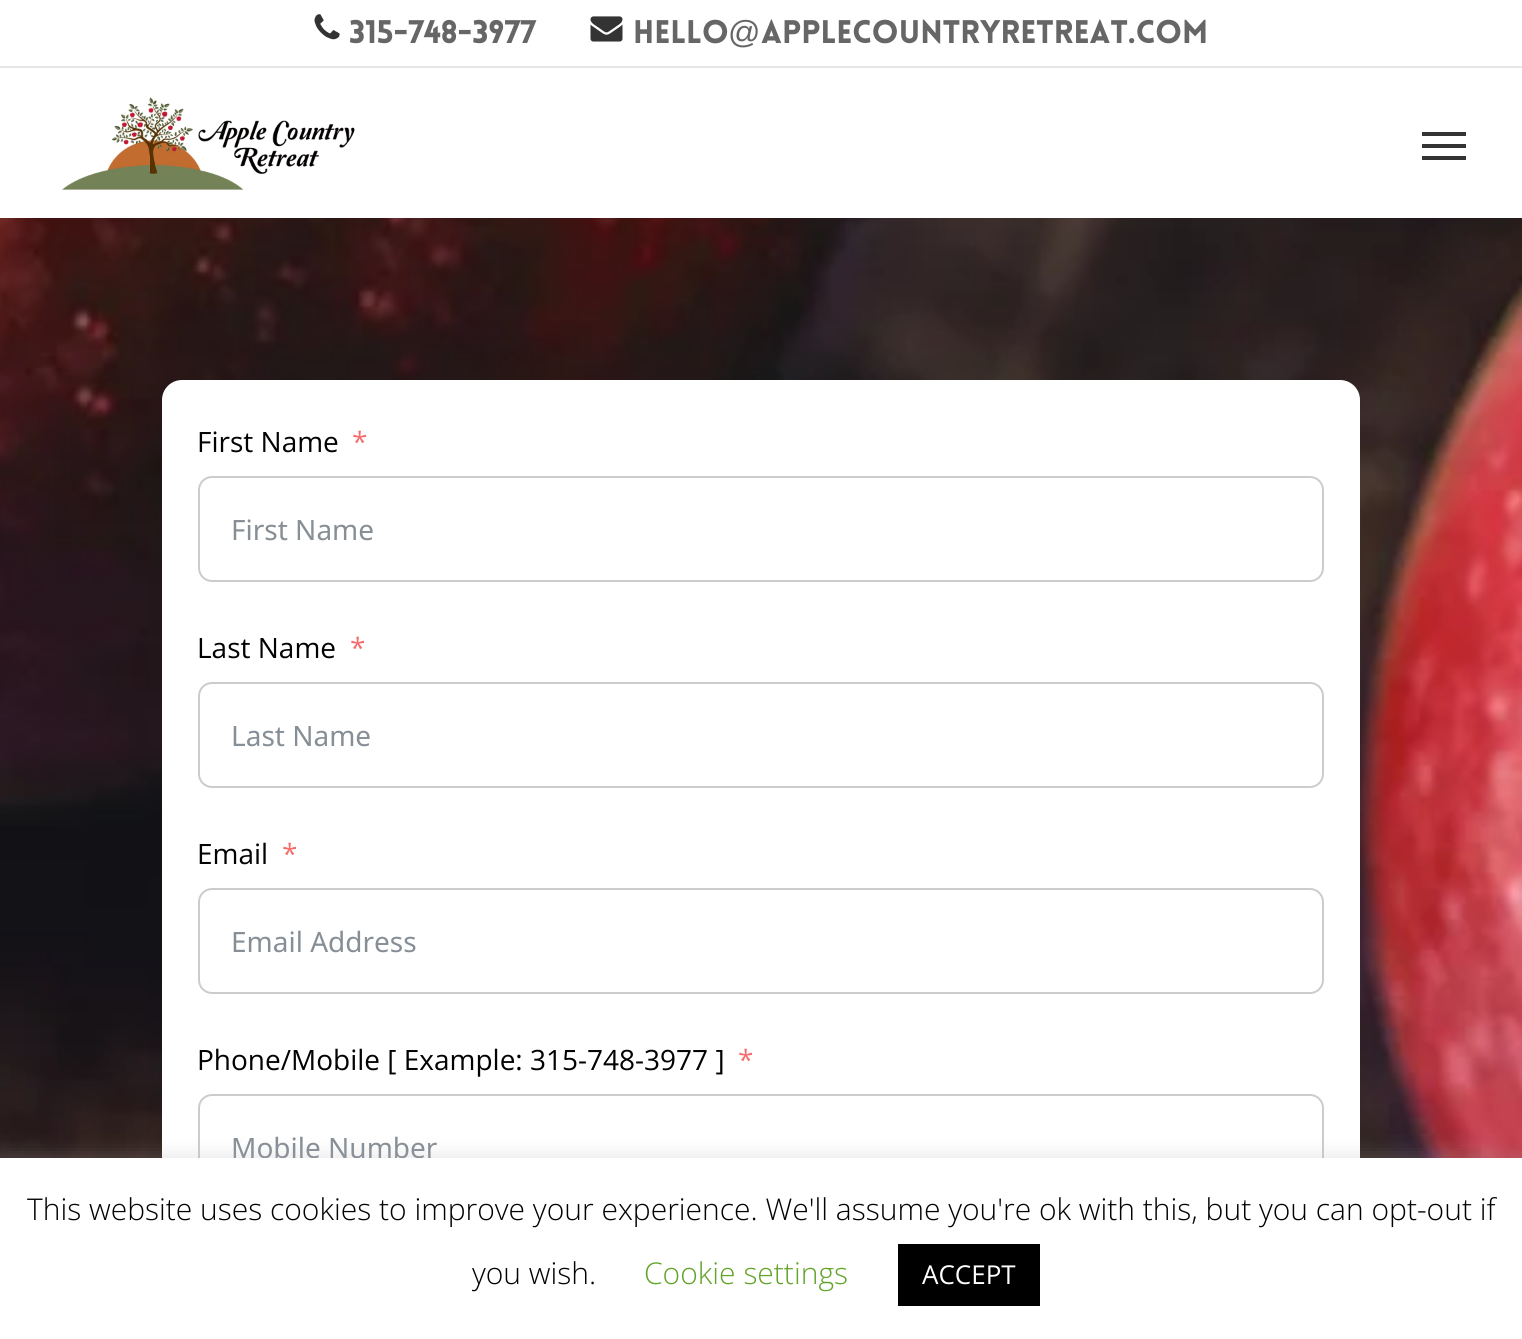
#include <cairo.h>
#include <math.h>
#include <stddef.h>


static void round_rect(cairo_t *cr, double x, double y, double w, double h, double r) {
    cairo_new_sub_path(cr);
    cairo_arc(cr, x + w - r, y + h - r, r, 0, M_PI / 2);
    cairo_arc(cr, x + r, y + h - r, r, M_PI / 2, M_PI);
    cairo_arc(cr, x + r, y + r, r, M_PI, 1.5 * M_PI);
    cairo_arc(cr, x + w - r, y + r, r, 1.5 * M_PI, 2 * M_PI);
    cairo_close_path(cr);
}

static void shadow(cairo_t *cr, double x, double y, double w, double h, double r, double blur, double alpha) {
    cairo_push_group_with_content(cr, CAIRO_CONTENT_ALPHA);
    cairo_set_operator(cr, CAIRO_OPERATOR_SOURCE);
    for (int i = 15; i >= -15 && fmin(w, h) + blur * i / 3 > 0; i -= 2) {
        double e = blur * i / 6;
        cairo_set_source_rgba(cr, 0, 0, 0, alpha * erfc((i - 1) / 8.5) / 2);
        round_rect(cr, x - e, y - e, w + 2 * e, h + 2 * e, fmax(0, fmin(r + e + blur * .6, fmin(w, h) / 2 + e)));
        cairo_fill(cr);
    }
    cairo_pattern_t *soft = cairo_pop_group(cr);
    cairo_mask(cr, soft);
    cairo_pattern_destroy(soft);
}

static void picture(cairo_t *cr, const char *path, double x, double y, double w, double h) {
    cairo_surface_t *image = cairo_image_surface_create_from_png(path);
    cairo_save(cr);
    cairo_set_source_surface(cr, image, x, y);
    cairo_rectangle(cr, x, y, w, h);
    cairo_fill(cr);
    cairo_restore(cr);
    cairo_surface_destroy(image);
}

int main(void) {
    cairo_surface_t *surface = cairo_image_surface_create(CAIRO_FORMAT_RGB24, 1522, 1339);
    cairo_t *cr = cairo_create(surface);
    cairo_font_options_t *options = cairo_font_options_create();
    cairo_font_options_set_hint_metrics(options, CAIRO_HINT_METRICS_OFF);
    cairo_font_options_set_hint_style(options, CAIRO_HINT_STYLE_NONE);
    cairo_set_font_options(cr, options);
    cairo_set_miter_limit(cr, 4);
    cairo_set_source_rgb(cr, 1, 1, 1);
    cairo_paint(cr);
    cairo_set_source_rgb(cr, 0.902, 0.902, 0.902);
    cairo_rectangle(cr, 0, 66, 1522, 2);
    cairo_fill(cr);
    picture(cr, "img1.png", 314, 14, 26, 26);
    cairo_select_font_face(cr, "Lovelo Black", CAIRO_FONT_SLANT_NORMAL, CAIRO_FONT_WEIGHT_NORMAL);
    cairo_set_font_size(cr, 32);
    cairo_set_source_rgb(cr, 0.4, 0.4, 0.4);
    cairo_move_to(cr, 349, 43);
    cairo_show_text(cr, "315-748-3977");
    picture(cr, "img2.png", 590, 16, 33, 26);
    cairo_move_to(cr, 633, 43);
    cairo_show_text(cr, "hello");
    cairo_select_font_face(cr, "Liberation Sans", CAIRO_FONT_SLANT_NORMAL, CAIRO_FONT_WEIGHT_NORMAL);
    cairo_move_to(cr, 728, 43);
    cairo_show_text(cr, "@");
    cairo_select_font_face(cr, "Lovelo Black", CAIRO_FONT_SLANT_NORMAL, CAIRO_FONT_WEIGHT_NORMAL);
    cairo_move_to(cr, 761, 43);
    cairo_show_text(cr, "applecountryretreat.com");
    picture(cr, "img3.png", 62, 97, 293, 93);
    cairo_set_source_rgb(cr, 0.2, 0.2, 0.2);
    cairo_rectangle(cr, 1422, 132, 44, 4);
    cairo_fill(cr);
    cairo_rectangle(cr, 1422, 156, 44, 4);
    cairo_fill(cr);
    cairo_rectangle(cr, 1422, 144, 44, 4);
    cairo_fill(cr);
    picture(cr, "img4.png", 0, 218, 1522, 940);
    cairo_set_source_rgb(cr, 1, 1, 1);
    round_rect(cr, 162, 380, 1198, 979, 20);
    cairo_fill(cr);
    cairo_select_font_face(cr, "Open Sans", CAIRO_FONT_SLANT_NORMAL, CAIRO_FONT_WEIGHT_NORMAL);
    cairo_set_font_size(cr, 28);
    cairo_set_source_rgb(cr, 0.008, 0.008, 0.008);
    cairo_move_to(cr, 197, 452);
    cairo_show_text(cr, "First Name");
    cairo_set_source_rgb(cr, 0.961, 0.424, 0.424);
    cairo_move_to(cr, 352, 452);
    cairo_show_text(cr, "*");
    round_rect(cr, 199, 477, 1124, 104, 13);
    cairo_set_source_rgb(cr, 0.8, 0.8, 0.8);
    cairo_stroke(cr);
    cairo_select_font_face(cr, "Noto Sans", CAIRO_FONT_SLANT_NORMAL, CAIRO_FONT_WEIGHT_NORMAL);
    cairo_set_source_rgb(cr, 0.525, 0.557, 0.588);
    cairo_move_to(cr, 231, 540);
    cairo_show_text(cr, "First Name");
    cairo_select_font_face(cr, "Open Sans", CAIRO_FONT_SLANT_NORMAL, CAIRO_FONT_WEIGHT_NORMAL);
    cairo_set_source_rgb(cr, 0.008, 0.008, 0.008);
    cairo_move_to(cr, 197, 658);
    cairo_show_text(cr, "Last Name");
    cairo_set_source_rgb(cr, 0.961, 0.424, 0.424);
    cairo_move_to(cr, 350, 658);
    cairo_show_text(cr, "*");
    round_rect(cr, 199, 683, 1124, 104, 13);
    cairo_set_source_rgb(cr, 0.8, 0.8, 0.8);
    cairo_stroke(cr);
    cairo_select_font_face(cr, "Noto Sans", CAIRO_FONT_SLANT_NORMAL, CAIRO_FONT_WEIGHT_NORMAL);
    cairo_set_source_rgb(cr, 0.525, 0.557, 0.588);
    cairo_move_to(cr, 231, 746);
    cairo_show_text(cr, "Last Name");
    cairo_select_font_face(cr, "Open Sans", CAIRO_FONT_SLANT_NORMAL, CAIRO_FONT_WEIGHT_NORMAL);
    cairo_set_source_rgb(cr, 0.008, 0.008, 0.008);
    cairo_move_to(cr, 197, 864);
    cairo_show_text(cr, "Email");
    cairo_set_source_rgb(cr, 0.961, 0.424, 0.424);
    cairo_move_to(cr, 282, 864);
    cairo_show_text(cr, "*");
    round_rect(cr, 199, 889, 1124, 104, 13);
    cairo_set_source_rgb(cr, 0.8, 0.8, 0.8);
    cairo_stroke(cr);
    cairo_select_font_face(cr, "Noto Sans", CAIRO_FONT_SLANT_NORMAL, CAIRO_FONT_WEIGHT_NORMAL);
    cairo_set_source_rgb(cr, 0.525, 0.557, 0.588);
    cairo_move_to(cr, 231, 952);
    cairo_show_text(cr, "Email Address");
    cairo_select_font_face(cr, "Open Sans", CAIRO_FONT_SLANT_NORMAL, CAIRO_FONT_WEIGHT_NORMAL);
    cairo_set_source_rgb(cr, 0.008, 0.008, 0.008);
    cairo_move_to(cr, 197, 1070);
    cairo_show_text(cr, "Phone/Mobile [ Example: 315-748-3977 ]");
    cairo_set_source_rgb(cr, 0.961, 0.424, 0.424);
    cairo_move_to(cr, 738, 1070);
    cairo_show_text(cr, "*");
    round_rect(cr, 199, 1095, 1124, 104, 13);
    cairo_set_source_rgb(cr, 0.8, 0.8, 0.8);
    cairo_stroke(cr);
    cairo_select_font_face(cr, "Noto Sans", CAIRO_FONT_SLANT_NORMAL, CAIRO_FONT_WEIGHT_NORMAL);
    cairo_set_source_rgb(cr, 0.525, 0.557, 0.588);
    cairo_move_to(cr, 231, 1158);
    cairo_show_text(cr, "Mobile Number");
    cairo_set_source_rgb(cr, 0.675, 0.671, 0.671);
    shadow(cr, 0, 1156, 1522, 182, 0, 10, 0.3);
    cairo_set_source_rgb(cr, 1, 1, 1);
    cairo_rectangle(cr, 0, 1158, 1522, 181);
    cairo_fill(cr);
    cairo_select_font_face(cr, "Open Sans Light", CAIRO_FONT_SLANT_NORMAL, CAIRO_FONT_WEIGHT_NORMAL);
    cairo_set_font_size(cr, 30);
    cairo_set_source_rgb(cr, 0.008, 0.008, 0.008);
    cairo_move_to(cr, 27, 1220);
    cairo_show_text(cr, "This website uses cookies to improve your experience. We'll assume you're ok with this, but you can opt-out if");
    cairo_move_to(cr, 472, 1284);
    cairo_show_text(cr, "you wish.");
    cairo_set_source_rgb(cr, 0.384, 0.639, 0.161);
    cairo_move_to(cr, 644, 1284);
    cairo_show_text(cr, "Cookie settings");
    cairo_set_source_rgb(cr, 0, 0, 0);
    cairo_rectangle(cr, 898, 1244, 142, 62);
    cairo_fill(cr);
    cairo_select_font_face(cr, "Open Sans", CAIRO_FONT_SLANT_NORMAL, CAIRO_FONT_WEIGHT_NORMAL);
    cairo_set_font_size(cr, 26);
    cairo_set_source_rgb(cr, 1, 1, 1);
    cairo_move_to(cr, 922, 1284);
    cairo_show_text(cr, "ACCEPT");
    cairo_surface_write_to_png(surface, "page.png");
    cairo_font_options_destroy(options);
    cairo_destroy(cr);
    cairo_surface_destroy(surface);
    return 0;
}
